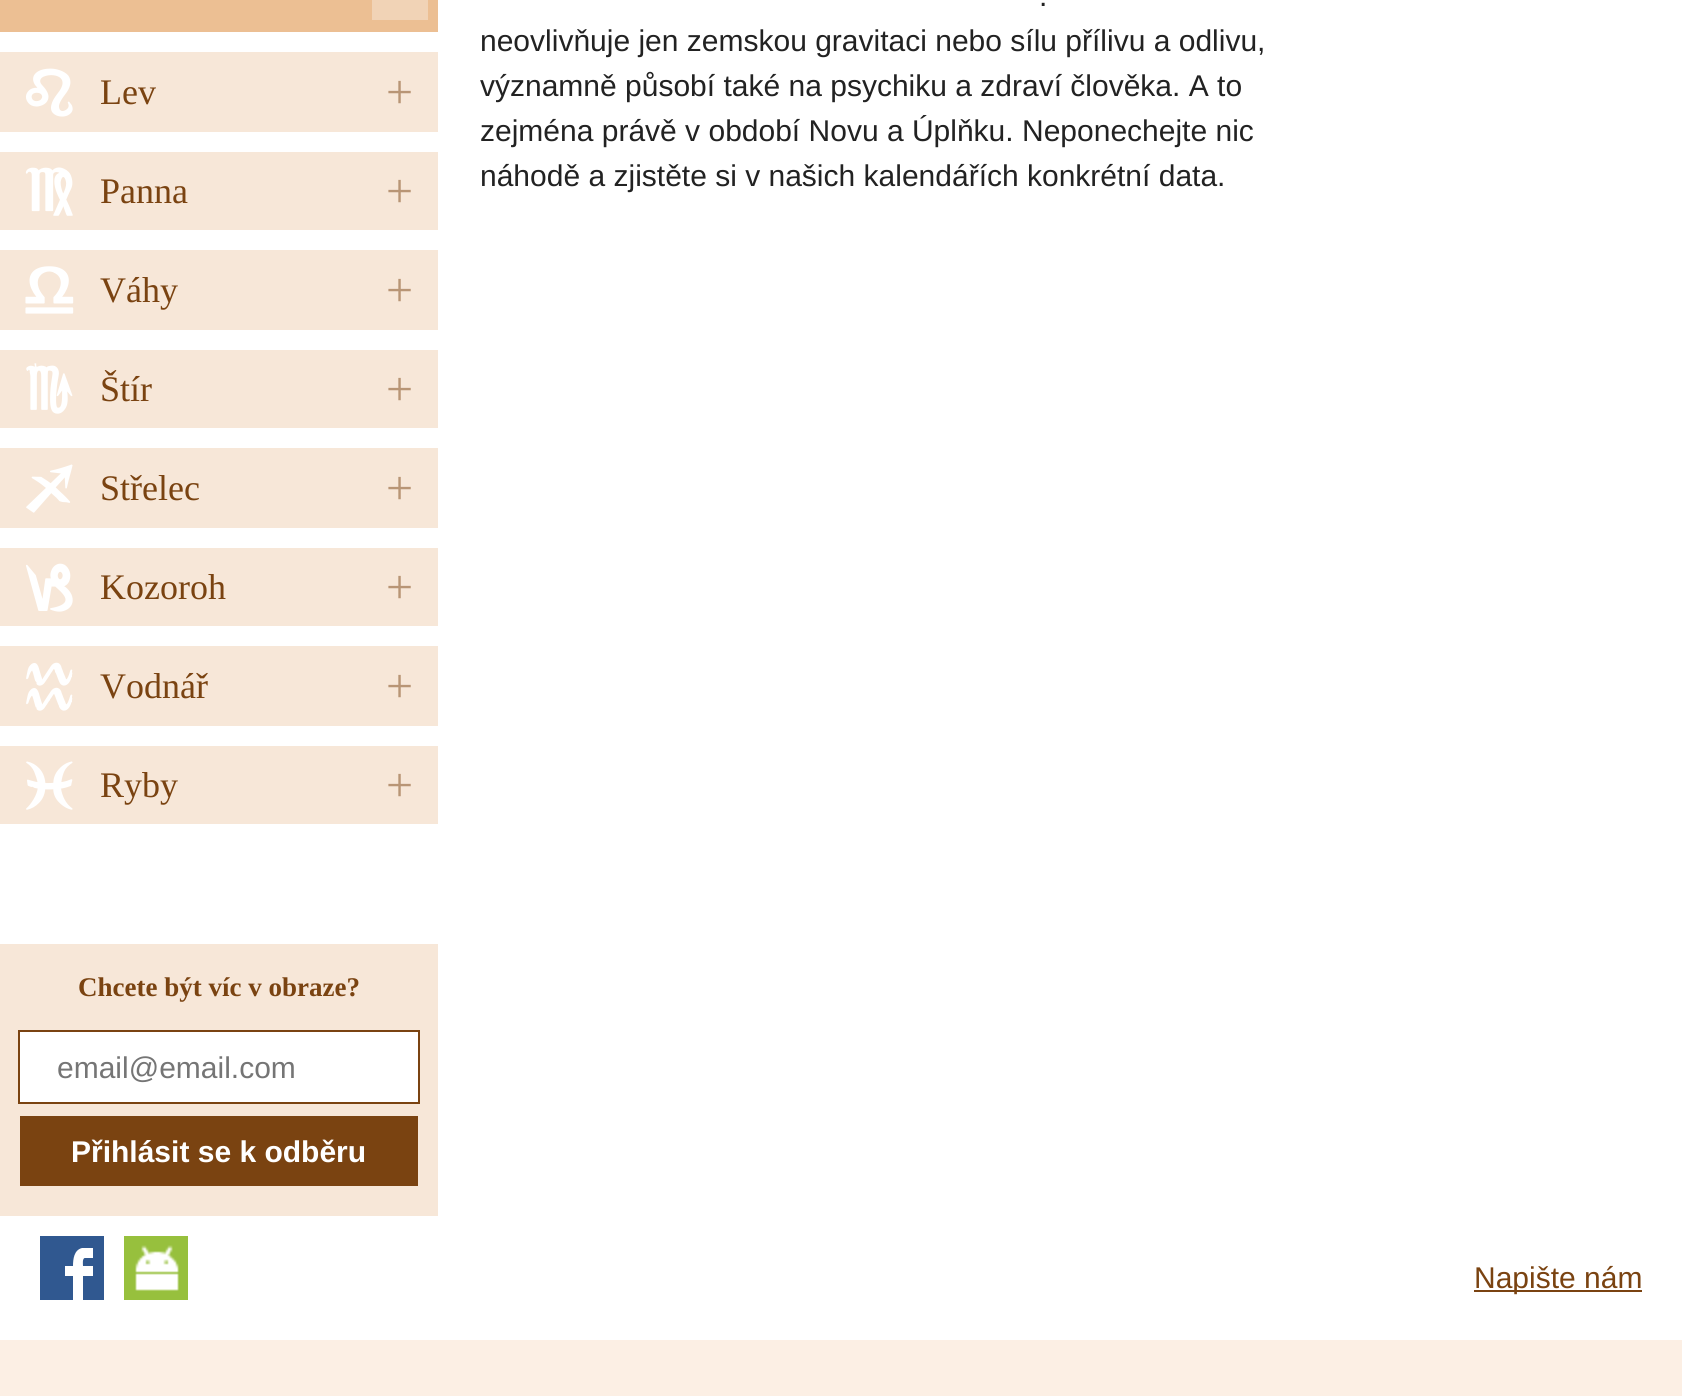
#include <cairo.h>
#include <math.h>
#include <stddef.h>


static void picture(cairo_t *cr, const char *path, double x, double y, double w, double h) {
    cairo_surface_t *image = cairo_image_surface_create_from_png(path);
    cairo_save(cr);
    cairo_set_source_surface(cr, image, x, y);
    cairo_rectangle(cr, x, y, w, h);
    cairo_fill(cr);
    cairo_restore(cr);
    cairo_surface_destroy(image);
}

int main(void) {
    cairo_surface_t *surface = cairo_image_surface_create(CAIRO_FORMAT_RGB24, 1682, 1396);
    cairo_t *cr = cairo_create(surface);
    cairo_font_options_t *options = cairo_font_options_create();
    cairo_font_options_set_hint_metrics(options, CAIRO_HINT_METRICS_OFF);
    cairo_font_options_set_hint_style(options, CAIRO_HINT_STYLE_NONE);
    cairo_set_font_options(cr, options);
    cairo_set_miter_limit(cr, 4);
    cairo_set_source_rgb(cr, 0.988, 0.937, 0.894);
    cairo_paint(cr);
    cairo_set_source_rgb(cr, 1, 1, 1);
    cairo_rectangle(cr, 0, 0, 1682, 1340);
    cairo_fill(cr);
    cairo_set_source_rgb(cr, 0.925, 0.749, 0.576);
    cairo_rectangle(cr, 0, 0, 438, 32);
    cairo_fill(cr);
    cairo_set_source_rgb(cr, 0.945, 0.827, 0.714);
    cairo_rectangle(cr, 372, 0, 56, 20);
    cairo_fill(cr);
    cairo_set_source_rgb(cr, 0.965, 0.906, 0.847);
    cairo_rectangle(cr, 0, 52, 438, 80);
    cairo_fill(cr);
    cairo_select_font_face(cr, "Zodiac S", CAIRO_FONT_SLANT_NORMAL, CAIRO_FONT_WEIGHT_BOLD);
    cairo_set_font_size(cr, 48);
    cairo_set_source_rgb(cr, 1, 1, 1);
    cairo_move_to(cr, 24, 118);
    cairo_show_text(cr, "e");
    cairo_select_font_face(cr, "Liberation Serif", CAIRO_FONT_SLANT_NORMAL, CAIRO_FONT_WEIGHT_NORMAL);
    cairo_set_font_size(cr, 36);
    cairo_set_source_rgb(cr, 0.478, 0.263, 0.067);
    cairo_move_to(cr, 100, 104);
    cairo_show_text(cr, "Lev");
    cairo_set_font_size(cr, 48);
    cairo_set_source_rgb(cr, 0.722, 0.584, 0.459);
    cairo_move_to(cr, 386, 108);
    cairo_show_text(cr, "+");
    cairo_set_source_rgb(cr, 0.965, 0.906, 0.847);
    cairo_rectangle(cr, 0, 152, 438, 78);
    cairo_fill(cr);
    cairo_select_font_face(cr, "Zodiac S", CAIRO_FONT_SLANT_NORMAL, CAIRO_FONT_WEIGHT_BOLD);
    cairo_set_source_rgb(cr, 1, 1, 1);
    cairo_move_to(cr, 24, 217);
    cairo_show_text(cr, "f");
    cairo_select_font_face(cr, "Liberation Serif", CAIRO_FONT_SLANT_NORMAL, CAIRO_FONT_WEIGHT_NORMAL);
    cairo_set_font_size(cr, 36);
    cairo_set_source_rgb(cr, 0.478, 0.263, 0.067);
    cairo_move_to(cr, 100, 203);
    cairo_show_text(cr, "Panna");
    cairo_set_font_size(cr, 48);
    cairo_set_source_rgb(cr, 0.722, 0.584, 0.459);
    cairo_move_to(cr, 386, 207);
    cairo_show_text(cr, "+");
    cairo_set_source_rgb(cr, 0.965, 0.906, 0.847);
    cairo_rectangle(cr, 0, 250, 438, 80);
    cairo_fill(cr);
    cairo_select_font_face(cr, "Zodiac S", CAIRO_FONT_SLANT_NORMAL, CAIRO_FONT_WEIGHT_BOLD);
    cairo_set_source_rgb(cr, 1, 1, 1);
    cairo_move_to(cr, 24, 316);
    cairo_show_text(cr, "g");
    cairo_select_font_face(cr, "Liberation Serif", CAIRO_FONT_SLANT_NORMAL, CAIRO_FONT_WEIGHT_NORMAL);
    cairo_set_font_size(cr, 36);
    cairo_set_source_rgb(cr, 0.478, 0.263, 0.067);
    cairo_move_to(cr, 100, 302);
    cairo_show_text(cr, "Váhy");
    cairo_set_font_size(cr, 48);
    cairo_set_source_rgb(cr, 0.722, 0.584, 0.459);
    cairo_move_to(cr, 386, 306);
    cairo_show_text(cr, "+");
    cairo_set_source_rgb(cr, 0.965, 0.906, 0.847);
    cairo_rectangle(cr, 0, 350, 438, 78);
    cairo_fill(cr);
    cairo_select_font_face(cr, "Zodiac S", CAIRO_FONT_SLANT_NORMAL, CAIRO_FONT_WEIGHT_BOLD);
    cairo_set_source_rgb(cr, 1, 1, 1);
    cairo_move_to(cr, 24, 415);
    cairo_show_text(cr, "h");
    cairo_select_font_face(cr, "Liberation Serif", CAIRO_FONT_SLANT_NORMAL, CAIRO_FONT_WEIGHT_NORMAL);
    cairo_set_font_size(cr, 36);
    cairo_set_source_rgb(cr, 0.478, 0.263, 0.067);
    cairo_move_to(cr, 100, 401);
    cairo_show_text(cr, "Štír");
    cairo_set_font_size(cr, 48);
    cairo_set_source_rgb(cr, 0.722, 0.584, 0.459);
    cairo_move_to(cr, 386, 405);
    cairo_show_text(cr, "+");
    cairo_set_source_rgb(cr, 0.965, 0.906, 0.847);
    cairo_rectangle(cr, 0, 448, 438, 80);
    cairo_fill(cr);
    cairo_select_font_face(cr, "Zodiac S", CAIRO_FONT_SLANT_NORMAL, CAIRO_FONT_WEIGHT_BOLD);
    cairo_set_source_rgb(cr, 1, 1, 1);
    cairo_move_to(cr, 24, 514);
    cairo_show_text(cr, "i");
    cairo_select_font_face(cr, "Liberation Serif", CAIRO_FONT_SLANT_NORMAL, CAIRO_FONT_WEIGHT_NORMAL);
    cairo_set_font_size(cr, 36);
    cairo_set_source_rgb(cr, 0.478, 0.263, 0.067);
    cairo_move_to(cr, 100, 500);
    cairo_show_text(cr, "Střelec");
    cairo_set_font_size(cr, 48);
    cairo_set_source_rgb(cr, 0.722, 0.584, 0.459);
    cairo_move_to(cr, 386, 504);
    cairo_show_text(cr, "+");
    cairo_set_source_rgb(cr, 0.965, 0.906, 0.847);
    cairo_rectangle(cr, 0, 548, 438, 78);
    cairo_fill(cr);
    cairo_select_font_face(cr, "Zodiac S", CAIRO_FONT_SLANT_NORMAL, CAIRO_FONT_WEIGHT_BOLD);
    cairo_set_source_rgb(cr, 1, 1, 1);
    cairo_move_to(cr, 24, 613);
    cairo_show_text(cr, "j");
    cairo_select_font_face(cr, "Liberation Serif", CAIRO_FONT_SLANT_NORMAL, CAIRO_FONT_WEIGHT_NORMAL);
    cairo_set_font_size(cr, 36);
    cairo_set_source_rgb(cr, 0.478, 0.263, 0.067);
    cairo_move_to(cr, 100, 599);
    cairo_show_text(cr, "Kozoroh");
    cairo_set_font_size(cr, 48);
    cairo_set_source_rgb(cr, 0.722, 0.584, 0.459);
    cairo_move_to(cr, 386, 603);
    cairo_show_text(cr, "+");
    cairo_set_source_rgb(cr, 0.965, 0.906, 0.847);
    cairo_rectangle(cr, 0, 646, 438, 80);
    cairo_fill(cr);
    cairo_select_font_face(cr, "Zodiac S", CAIRO_FONT_SLANT_NORMAL, CAIRO_FONT_WEIGHT_BOLD);
    cairo_set_source_rgb(cr, 1, 1, 1);
    cairo_move_to(cr, 24, 712);
    cairo_show_text(cr, "k");
    cairo_select_font_face(cr, "Liberation Serif", CAIRO_FONT_SLANT_NORMAL, CAIRO_FONT_WEIGHT_NORMAL);
    cairo_set_font_size(cr, 36);
    cairo_set_source_rgb(cr, 0.478, 0.263, 0.067);
    cairo_move_to(cr, 100, 698);
    cairo_show_text(cr, "Vodnář");
    cairo_set_font_size(cr, 48);
    cairo_set_source_rgb(cr, 0.722, 0.584, 0.459);
    cairo_move_to(cr, 386, 702);
    cairo_show_text(cr, "+");
    cairo_set_source_rgb(cr, 0.965, 0.906, 0.847);
    cairo_rectangle(cr, 0, 746, 438, 78);
    cairo_fill(cr);
    cairo_select_font_face(cr, "Zodiac S", CAIRO_FONT_SLANT_NORMAL, CAIRO_FONT_WEIGHT_BOLD);
    cairo_set_source_rgb(cr, 1, 1, 1);
    cairo_move_to(cr, 24, 811);
    cairo_show_text(cr, "l");
    cairo_select_font_face(cr, "Liberation Serif", CAIRO_FONT_SLANT_NORMAL, CAIRO_FONT_WEIGHT_NORMAL);
    cairo_set_font_size(cr, 36);
    cairo_set_source_rgb(cr, 0.478, 0.263, 0.067);
    cairo_move_to(cr, 100, 797);
    cairo_show_text(cr, "Ryby");
    cairo_set_font_size(cr, 48);
    cairo_set_source_rgb(cr, 0.722, 0.584, 0.459);
    cairo_move_to(cr, 386, 801);
    cairo_show_text(cr, "+");
    cairo_set_source_rgb(cr, 0.965, 0.906, 0.847);
    cairo_rectangle(cr, 0, 944, 438, 272);
    cairo_fill(cr);
    cairo_select_font_face(cr, "Liberation Serif", CAIRO_FONT_SLANT_NORMAL, CAIRO_FONT_WEIGHT_BOLD);
    cairo_set_font_size(cr, 27);
    cairo_set_source_rgb(cr, 0.478, 0.263, 0.067);
    cairo_move_to(cr, 78, 996);
    cairo_show_text(cr, "Chcete být víc v obraze?");
    cairo_set_source_rgb(cr, 1, 1, 1);
    cairo_rectangle(cr, 19, 1031, 400, 72);
    cairo_fill_preserve(cr);
    cairo_set_source_rgb(cr, 0.478, 0.263, 0.067);
    cairo_stroke(cr);
    cairo_select_font_face(cr, "Liberation Sans", CAIRO_FONT_SLANT_NORMAL, CAIRO_FONT_WEIGHT_NORMAL);
    cairo_set_font_size(cr, 30);
    cairo_set_source_rgb(cr, 0.459, 0.459, 0.459);
    cairo_move_to(cr, 57, 1078);
    cairo_show_text(cr, "email@email.com");
    cairo_set_source_rgb(cr, 0.478, 0.263, 0.067);
    cairo_rectangle(cr, 20, 1116, 398, 70);
    cairo_fill(cr);
    cairo_select_font_face(cr, "Liberation Sans", CAIRO_FONT_SLANT_NORMAL, CAIRO_FONT_WEIGHT_BOLD);
    cairo_set_source_rgb(cr, 1, 1, 1);
    cairo_move_to(cr, 71, 1162);
    cairo_show_text(cr, "Přihlásit se k odběru");
    cairo_select_font_face(cr, "Liberation Sans", CAIRO_FONT_SLANT_NORMAL, CAIRO_FONT_WEIGHT_NORMAL);
    cairo_set_source_rgb(cr, 0.133, 0.133, 0.133);
    cairo_move_to(cr, 1039, 6);
    cairo_show_text(cr, ".");
    cairo_move_to(cr, 480, 51);
    cairo_show_text(cr, "neovlivňuje jen zemskou gravitaci nebo sílu přílivu a odlivu,");
    cairo_move_to(cr, 480, 96);
    cairo_show_text(cr, "významně působí také na psychiku a zdraví člověka. A to");
    cairo_move_to(cr, 480, 141);
    cairo_show_text(cr, "zejména právě v období Novu a Úplňku. Neponechejte nic");
    cairo_move_to(cr, 480, 186);
    cairo_show_text(cr, "náhodě a zjistěte si v našich kalendářích konkrétní data.");
    cairo_set_source_rgb(cr, 0.188, 0.345, 0.565);
    cairo_rectangle(cr, 40, 1236, 64, 64);
    cairo_fill(cr);
    cairo_set_source_rgb(cr, 1, 1, 1);
    cairo_new_path(cr);
    cairo_move_to(cr, 85, 1258);
    cairo_line_to(cr, 93, 1258);
    cairo_line_to(cr, 93, 1248);
    cairo_line_to(cr, 82, 1248);
    cairo_curve_to(cr, 74, 1250, 73, 1259, 73, 1266);
    cairo_line_to(cr, 65, 1266);
    cairo_line_to(cr, 65, 1276);
    cairo_line_to(cr, 73, 1276);
    cairo_line_to(cr, 73, 1300);
    cairo_line_to(cr, 83, 1300);
    cairo_line_to(cr, 83, 1276);
    cairo_line_to(cr, 93, 1276);
    cairo_line_to(cr, 93, 1266);
    cairo_line_to(cr, 83, 1266);
    cairo_curve_to(cr, 83, 1265, 82, 1258, 85, 1258);
    cairo_close_path(cr);
    cairo_fill(cr);
    cairo_set_source_rgb(cr, 0.592, 0.753, 0.239);
    cairo_rectangle(cr, 124, 1236, 64, 64);
    cairo_fill(cr);
    picture(cr, "img1.png", 135, 1245, 44, 46);
    cairo_set_source_rgb(cr, 0.478, 0.263, 0.067);
    cairo_rectangle(cr, 1474, 1290, 168, 2);
    cairo_fill(cr);
    cairo_move_to(cr, 1474, 1288);
    cairo_show_text(cr, "Napište nám");
    cairo_surface_write_to_png(surface, "page.png");
    cairo_font_options_destroy(options);
    cairo_destroy(cr);
    cairo_surface_destroy(surface);
    return 0;
}
